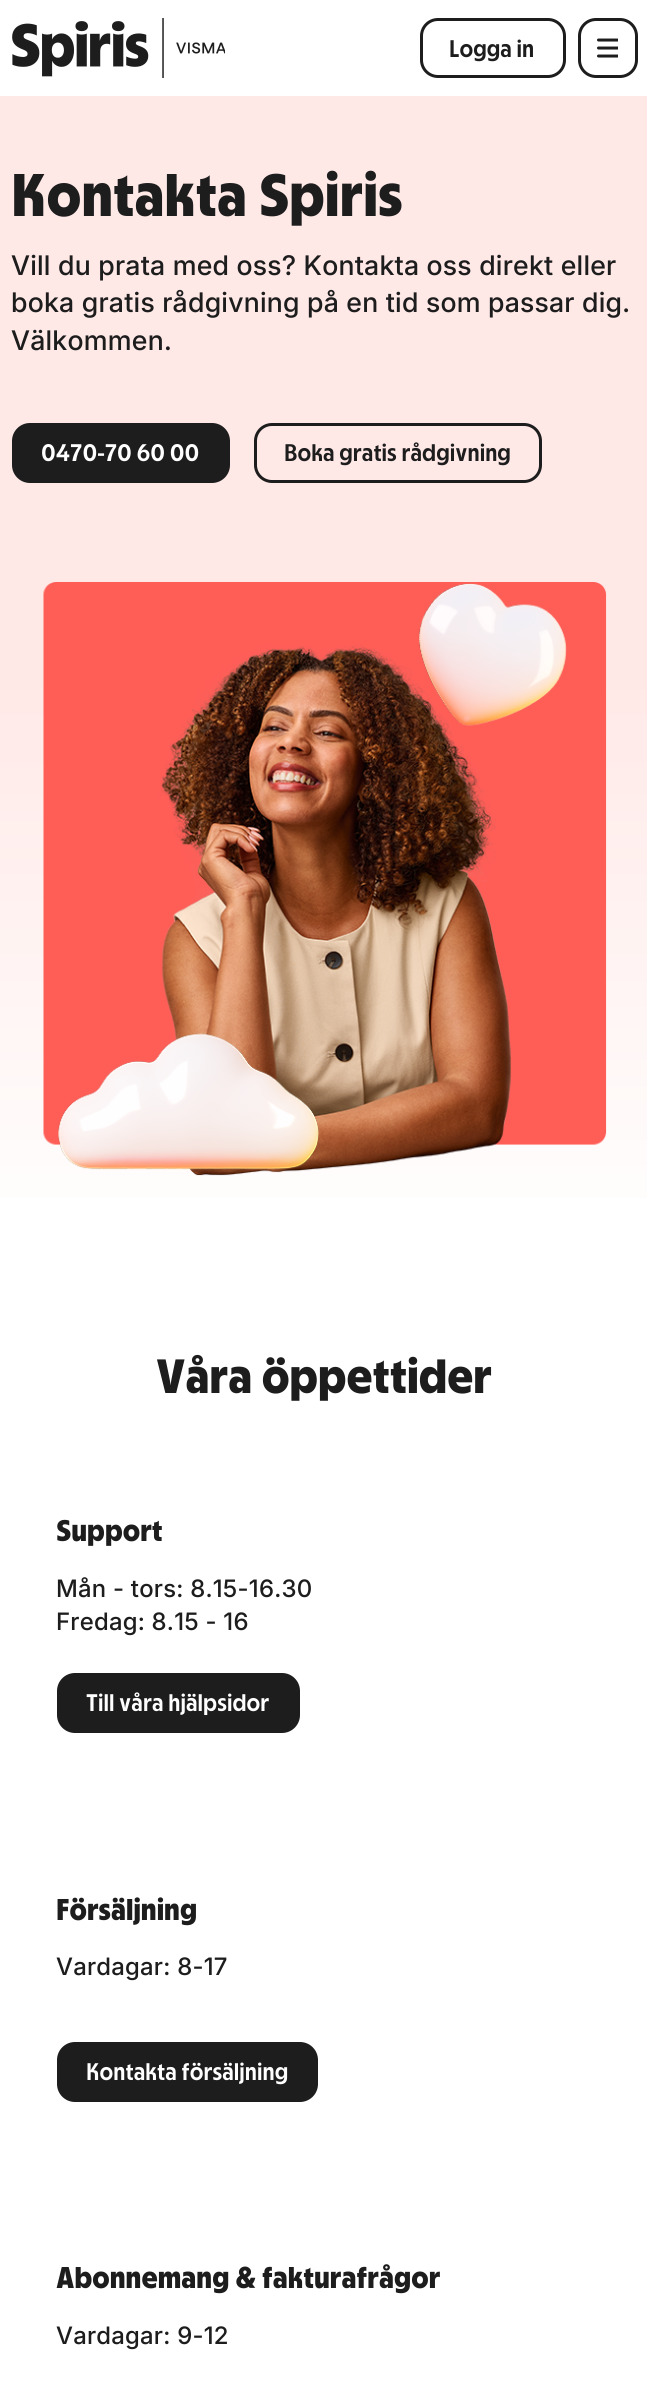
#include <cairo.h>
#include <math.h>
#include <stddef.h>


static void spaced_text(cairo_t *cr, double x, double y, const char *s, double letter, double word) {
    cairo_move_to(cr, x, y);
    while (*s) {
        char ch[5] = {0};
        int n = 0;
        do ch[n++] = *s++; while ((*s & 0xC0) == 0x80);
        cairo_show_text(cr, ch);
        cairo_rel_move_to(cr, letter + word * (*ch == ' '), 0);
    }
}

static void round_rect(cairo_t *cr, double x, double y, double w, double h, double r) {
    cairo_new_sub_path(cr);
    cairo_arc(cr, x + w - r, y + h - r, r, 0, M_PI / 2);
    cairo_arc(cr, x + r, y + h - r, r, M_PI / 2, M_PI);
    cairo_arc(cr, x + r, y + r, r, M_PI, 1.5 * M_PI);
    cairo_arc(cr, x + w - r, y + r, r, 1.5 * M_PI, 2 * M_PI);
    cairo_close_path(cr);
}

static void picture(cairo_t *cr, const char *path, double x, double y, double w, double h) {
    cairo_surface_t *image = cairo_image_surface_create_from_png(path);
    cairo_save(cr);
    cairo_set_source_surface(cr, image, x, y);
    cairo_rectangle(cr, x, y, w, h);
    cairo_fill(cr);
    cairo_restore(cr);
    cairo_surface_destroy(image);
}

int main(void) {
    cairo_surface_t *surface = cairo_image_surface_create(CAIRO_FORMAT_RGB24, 647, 2388);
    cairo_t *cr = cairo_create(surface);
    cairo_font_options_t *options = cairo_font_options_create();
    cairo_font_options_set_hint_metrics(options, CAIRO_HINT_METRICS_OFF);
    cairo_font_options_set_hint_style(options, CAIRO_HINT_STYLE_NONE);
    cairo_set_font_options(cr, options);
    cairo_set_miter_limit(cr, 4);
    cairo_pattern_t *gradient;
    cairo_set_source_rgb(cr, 1, 1, 1);
    cairo_paint(cr);
    picture(cr, "img1.png", 12, 18, 213, 60);
    round_rect(cr, 421.5, 19.5, 143, 57, 16.5);
    cairo_set_source_rgb(cr, 0.114, 0.114, 0.118);
    cairo_set_line_width(cr, 3);
    cairo_stroke(cr);
    cairo_select_font_face(cr, "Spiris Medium", CAIRO_FONT_SLANT_NORMAL, CAIRO_FONT_WEIGHT_NORMAL);
    cairo_set_font_size(cr, 24);
    cairo_move_to(cr, 449, 57);
    cairo_show_text(cr, "Logga in");
    round_rect(cr, 579.5, 19.5, 57, 57, 16.5);
    cairo_stroke(cr);
    cairo_save(cr);
    cairo_rectangle(cr, 597, 38, 21, 21);
    cairo_clip(cr);
    cairo_new_path(cr);
    cairo_move_to(cr, 598.5, 48);
    cairo_line_to(cr, 619.5, 48);
    cairo_move_to(cr, 598.5, 40);
    cairo_line_to(cr, 619.5, 40);
    cairo_move_to(cr, 598.5, 56);
    cairo_line_to(cr, 619.5, 56);
    cairo_set_line_cap(cr, CAIRO_LINE_CAP_ROUND);
    cairo_set_line_join(cr, CAIRO_LINE_JOIN_ROUND);
    cairo_stroke(cr);
    cairo_restore(cr);
    gradient = cairo_pattern_create_linear(324, 1259, 324, 96);
    cairo_pattern_add_color_stop_rgba(gradient, 0, 1, 1, 1, 1);
    cairo_pattern_add_color_stop_rgba(gradient, 0.5, 1, 0.914, 0.906, 1);
    cairo_pattern_add_color_stop_rgba(gradient, 1, 1, 0.914, 0.906, 1);
    cairo_set_source(cr, gradient);
    cairo_pattern_destroy(gradient);
    cairo_rectangle(cr, 0, 96, 647, 1102);
    cairo_fill(cr);
    cairo_select_font_face(cr, "Spiris", CAIRO_FONT_SLANT_NORMAL, CAIRO_FONT_WEIGHT_BOLD);
    cairo_set_font_size(cr, 60);
    cairo_set_source_rgb(cr, 0.114, 0.114, 0.118);
    cairo_move_to(cr, 11, 216);
    cairo_show_text(cr, "Kontakta Spiris");
    cairo_select_font_face(cr, "Inter Medium", CAIRO_FONT_SLANT_NORMAL, CAIRO_FONT_WEIGHT_NORMAL);
    cairo_set_font_size(cr, 27);
    spaced_text(cr, 11, 275, "Vill du prata med oss? Kontakta oss direkt eller", 0.25, 0);
    spaced_text(cr, 11, 312, "boka gratis rådgivning på en tid som passar dig.", 0.25, 0);
    spaced_text(cr, 11, 350, "Välkommen.", 0.25, 0);
    round_rect(cr, 12, 423, 218, 60, 18);
    cairo_fill(cr);
    cairo_select_font_face(cr, "Spiris Medium", CAIRO_FONT_SLANT_NORMAL, CAIRO_FONT_WEIGHT_NORMAL);
    cairo_set_font_size(cr, 24);
    cairo_set_source_rgb(cr, 1, 1, 1);
    cairo_move_to(cr, 41, 461);
    cairo_show_text(cr, "0470-70 60 00");
    round_rect(cr, 255.5, 424.5, 285, 57, 16.5);
    cairo_set_source_rgb(cr, 0.114, 0.114, 0.118);
    cairo_stroke(cr);
    cairo_move_to(cr, 284, 461);
    cairo_show_text(cr, "Boka gratis rådgivning");
    picture(cr, "img2.png", 43, 582, 564, 594);
    cairo_select_font_face(cr, "Spiris", CAIRO_FONT_SLANT_NORMAL, CAIRO_FONT_WEIGHT_BOLD);
    cairo_set_font_size(cr, 48);
    cairo_move_to(cr, 156, 1393);
    cairo_show_text(cr, "Våra öppettider");
    cairo_set_font_size(cr, 30);
    cairo_move_to(cr, 56, 1541);
    cairo_show_text(cr, "Support");
    cairo_select_font_face(cr, "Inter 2 Medium", CAIRO_FONT_SLANT_NORMAL, CAIRO_FONT_WEIGHT_NORMAL);
    cairo_set_font_size(cr, 24);
    spaced_text(cr, 56, 1597, "Mån - tors: 8.15-16.30", 0.25, 0);
    spaced_text(cr, 56, 1630, "Fredag: 8.15 - 16", 0.25, 0);
    round_rect(cr, 57, 1673, 243, 60, 18);
    cairo_fill(cr);
    cairo_select_font_face(cr, "Spiris Medium", CAIRO_FONT_SLANT_NORMAL, CAIRO_FONT_WEIGHT_NORMAL);
    cairo_set_source_rgb(cr, 1, 1, 1);
    cairo_move_to(cr, 86, 1711);
    cairo_show_text(cr, "Till våra hjälpsidor");
    cairo_select_font_face(cr, "Spiris", CAIRO_FONT_SLANT_NORMAL, CAIRO_FONT_WEIGHT_BOLD);
    cairo_set_font_size(cr, 30);
    cairo_set_source_rgb(cr, 0.114, 0.114, 0.118);
    cairo_move_to(cr, 56, 1920);
    cairo_show_text(cr, "Försäljning");
    cairo_select_font_face(cr, "Inter 2 Medium", CAIRO_FONT_SLANT_NORMAL, CAIRO_FONT_WEIGHT_NORMAL);
    cairo_set_font_size(cr, 24);
    spaced_text(cr, 56, 1975, "Vardagar: 8-17", 0.25, 0);
    round_rect(cr, 57, 2042, 261, 60, 18);
    cairo_fill(cr);
    cairo_select_font_face(cr, "Spiris Medium", CAIRO_FONT_SLANT_NORMAL, CAIRO_FONT_WEIGHT_NORMAL);
    cairo_set_source_rgb(cr, 1, 1, 1);
    cairo_move_to(cr, 86, 2080);
    cairo_show_text(cr, "Kontakta försäljning");
    cairo_select_font_face(cr, "Spiris", CAIRO_FONT_SLANT_NORMAL, CAIRO_FONT_WEIGHT_BOLD);
    cairo_set_font_size(cr, 30);
    cairo_set_source_rgb(cr, 0.114, 0.114, 0.118);
    cairo_move_to(cr, 56, 2288);
    cairo_show_text(cr, "Abonnemang & fakturafrågor");
    cairo_select_font_face(cr, "Inter 2 Medium", CAIRO_FONT_SLANT_NORMAL, CAIRO_FONT_WEIGHT_NORMAL);
    cairo_set_font_size(cr, 24);
    spaced_text(cr, 56, 2344, "Vardagar: 9-12", 0.25, 0);
    cairo_surface_write_to_png(surface, "page.png");
    cairo_font_options_destroy(options);
    cairo_destroy(cr);
    cairo_surface_destroy(surface);
    return 0;
}
